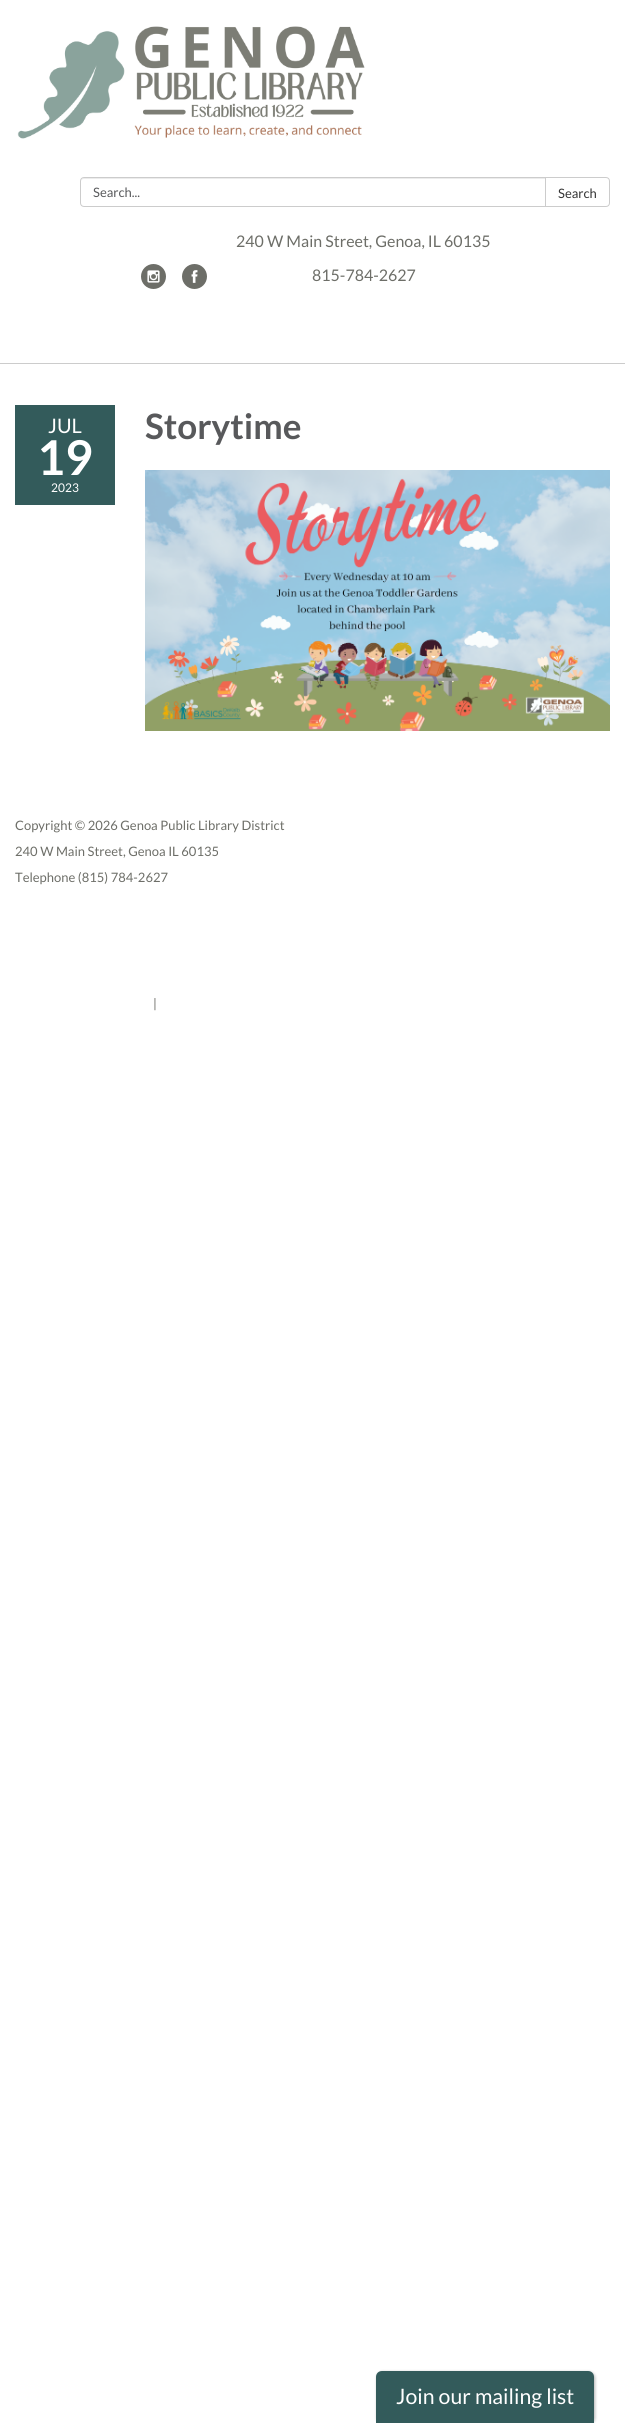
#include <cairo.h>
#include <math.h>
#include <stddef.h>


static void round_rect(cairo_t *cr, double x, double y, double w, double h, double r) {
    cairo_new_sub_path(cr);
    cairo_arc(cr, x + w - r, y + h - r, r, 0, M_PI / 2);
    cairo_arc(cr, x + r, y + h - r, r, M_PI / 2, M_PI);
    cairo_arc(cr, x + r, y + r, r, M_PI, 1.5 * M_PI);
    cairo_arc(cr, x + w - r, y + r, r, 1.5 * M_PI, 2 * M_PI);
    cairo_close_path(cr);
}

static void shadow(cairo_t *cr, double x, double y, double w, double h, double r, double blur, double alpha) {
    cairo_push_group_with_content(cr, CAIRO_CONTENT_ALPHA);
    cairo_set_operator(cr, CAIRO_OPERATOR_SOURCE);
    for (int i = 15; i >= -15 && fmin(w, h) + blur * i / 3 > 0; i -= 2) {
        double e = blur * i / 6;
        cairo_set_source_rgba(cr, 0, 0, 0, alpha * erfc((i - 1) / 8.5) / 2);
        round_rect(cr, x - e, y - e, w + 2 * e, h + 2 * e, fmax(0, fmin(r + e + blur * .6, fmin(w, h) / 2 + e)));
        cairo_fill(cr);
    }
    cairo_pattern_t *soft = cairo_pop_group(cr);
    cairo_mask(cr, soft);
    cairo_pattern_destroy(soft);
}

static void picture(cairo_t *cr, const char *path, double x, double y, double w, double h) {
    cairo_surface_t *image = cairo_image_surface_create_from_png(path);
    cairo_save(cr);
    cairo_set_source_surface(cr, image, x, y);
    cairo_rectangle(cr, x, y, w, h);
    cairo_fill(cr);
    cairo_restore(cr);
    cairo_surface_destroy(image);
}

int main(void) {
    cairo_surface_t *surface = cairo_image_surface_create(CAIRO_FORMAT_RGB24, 625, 2423);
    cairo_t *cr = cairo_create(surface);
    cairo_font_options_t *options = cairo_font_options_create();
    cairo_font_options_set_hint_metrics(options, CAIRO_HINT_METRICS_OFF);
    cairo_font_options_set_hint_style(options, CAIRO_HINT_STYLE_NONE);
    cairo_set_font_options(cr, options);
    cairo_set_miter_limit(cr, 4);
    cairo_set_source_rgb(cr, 1, 1, 1);
    cairo_paint(cr);
    picture(cr, "img1.png", 17, 26, 348, 113);
    cairo_set_source_rgb(cr, 0.925, 0.925, 0.925);
    cairo_new_path(cr);
    cairo_move_to(cr, 84, 179);
    cairo_line_to(cr, 545, 179);
    cairo_line_to(cr, 545, 178);
    cairo_line_to(cr, 84, 178);
    cairo_curve_to(cr, 82, 178, 81, 180, 81, 182);
    cairo_curve_to(cr, 81, 180, 82, 179, 84, 179);
    cairo_close_path(cr);
    cairo_fill(cr);
    cairo_new_path(cr);
    cairo_move_to(cr, 84, 177.5);
    cairo_line_to(cr, 545.5, 177.5);
    cairo_line_to(cr, 545.5, 206.5);
    cairo_line_to(cr, 84, 206.5);
    cairo_curve_to(cr, 82, 206.5, 80.5, 205, 80.5, 203);
    cairo_line_to(cr, 80.5, 181);
    cairo_curve_to(cr, 80.5, 179, 82, 177.5, 84, 177.5);
    cairo_close_path(cr);
    cairo_set_source_rgb(cr, 0.8, 0.8, 0.8);
    cairo_set_line_width(cr, 1);
    cairo_stroke(cr);
    cairo_select_font_face(cr, "Lato", CAIRO_FONT_SLANT_NORMAL, CAIRO_FONT_WEIGHT_NORMAL);
    cairo_set_font_size(cr, 13);
    cairo_set_source_rgb(cr, 0.345, 0.349, 0.357);
    cairo_move_to(cr, 93, 197);
    cairo_show_text(cr, "Search...");
    cairo_set_source_rgb(cr, 1, 1, 1);
    cairo_new_path(cr);
    cairo_move_to(cr, 545.5, 177.5);
    cairo_line_to(cr, 606, 177.5);
    cairo_curve_to(cr, 608, 177.5, 609.5, 179, 609.5, 181);
    cairo_line_to(cr, 609.5, 203);
    cairo_curve_to(cr, 609.5, 205, 608, 206.5, 606, 206.5);
    cairo_line_to(cr, 545.5, 206.5);
    cairo_close_path(cr);
    cairo_fill_preserve(cr);
    cairo_set_source_rgb(cr, 0.8, 0.8, 0.8);
    cairo_stroke(cr);
    cairo_set_source_rgb(cr, 0.2, 0.2, 0.2);
    cairo_move_to(cr, 558, 198);
    cairo_show_text(cr, "Search");
    picture(cr, "img2.png", 141, 264, 25, 25);
    picture(cr, "img3.png", 182, 264, 25, 25);
    cairo_set_font_size(cr, 16);
    cairo_set_source_rgb(cr, 0.427, 0.431, 0.408);
    cairo_move_to(cr, 236, 247);
    cairo_show_text(cr, "240 W Main Street, Genoa, IL 60135");
    cairo_move_to(cr, 312, 281);
    cairo_show_text(cr, "815-784-2627");
    cairo_set_source_rgb(cr, 0.8, 0.8, 0.8);
    cairo_rectangle(cr, 0, 363, 625, 1);
    cairo_fill(cr);
    cairo_set_source_rgb(cr, 0.2, 0.357, 0.357);
    cairo_rectangle(cr, 15, 405, 100, 100);
    cairo_fill(cr);
    cairo_set_font_size(cr, 20);
    cairo_set_source_rgb(cr, 1, 1, 1);
    cairo_move_to(cr, 48, 433);
    cairo_show_text(cr, "JUL");
    cairo_select_font_face(cr, "Lato", CAIRO_FONT_SLANT_NORMAL, CAIRO_FONT_WEIGHT_BOLD);
    cairo_set_font_size(cr, 48);
    cairo_move_to(cr, 37, 475);
    cairo_show_text(cr, "19");
    cairo_select_font_face(cr, "Lato", CAIRO_FONT_SLANT_NORMAL, CAIRO_FONT_WEIGHT_NORMAL);
    cairo_set_font_size(cr, 12);
    cairo_move_to(cr, 51, 492);
    cairo_show_text(cr, "2023");
    cairo_select_font_face(cr, "Lato", CAIRO_FONT_SLANT_NORMAL, CAIRO_FONT_WEIGHT_BOLD);
    cairo_set_font_size(cr, 35);
    cairo_set_source_rgb(cr, 0.345, 0.349, 0.357);
    cairo_move_to(cr, 145, 439);
    cairo_show_text(cr, "Storytime");
    picture(cr, "img4.png", 145, 470, 465, 261);
    cairo_select_font_face(cr, "Lato", CAIRO_FONT_SLANT_NORMAL, CAIRO_FONT_WEIGHT_NORMAL);
    cairo_set_font_size(cr, 13);
    cairo_set_source_rgb(cr, 0.427, 0.431, 0.408);
    cairo_move_to(cr, 15, 830);
    cairo_show_text(cr, "Copyright © 2026 Genoa Public Library District");
    cairo_move_to(cr, 15, 856);
    cairo_show_text(cr, "240 W Main Street, Genoa IL 60135");
    cairo_move_to(cr, 15, 882);
    cairo_show_text(cr, "Telephone (815) 784-2627");
    cairo_move_to(cr, 153, 1008);
    cairo_show_text(cr, "|");
    cairo_set_source_rgb(cr, 0, 0, 0);
    shadow(cr, 377, 2372, 218, 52, 6, 1.5, 0.3);
    cairo_set_source_rgb(cr, 0.2, 0.357, 0.357);
    cairo_new_path(cr);
    cairo_move_to(cr, 382, 2371);
    cairo_line_to(cr, 588, 2371);
    cairo_curve_to(cr, 591.5, 2371, 594, 2373.5, 594, 2377);
    cairo_line_to(cr, 594, 2423);
    cairo_line_to(cr, 376, 2423);
    cairo_line_to(cr, 376, 2377);
    cairo_curve_to(cr, 376, 2373.5, 378.5, 2371, 382, 2371);
    cairo_close_path(cr);
    cairo_fill(cr);
    cairo_set_font_size(cr, 21.25);
    cairo_set_source_rgb(cr, 1, 1, 1);
    cairo_move_to(cr, 396, 2404);
    cairo_show_text(cr, "Join our mailing list");
    cairo_surface_write_to_png(surface, "page.png");
    cairo_font_options_destroy(options);
    cairo_destroy(cr);
    cairo_surface_destroy(surface);
    return 0;
}
